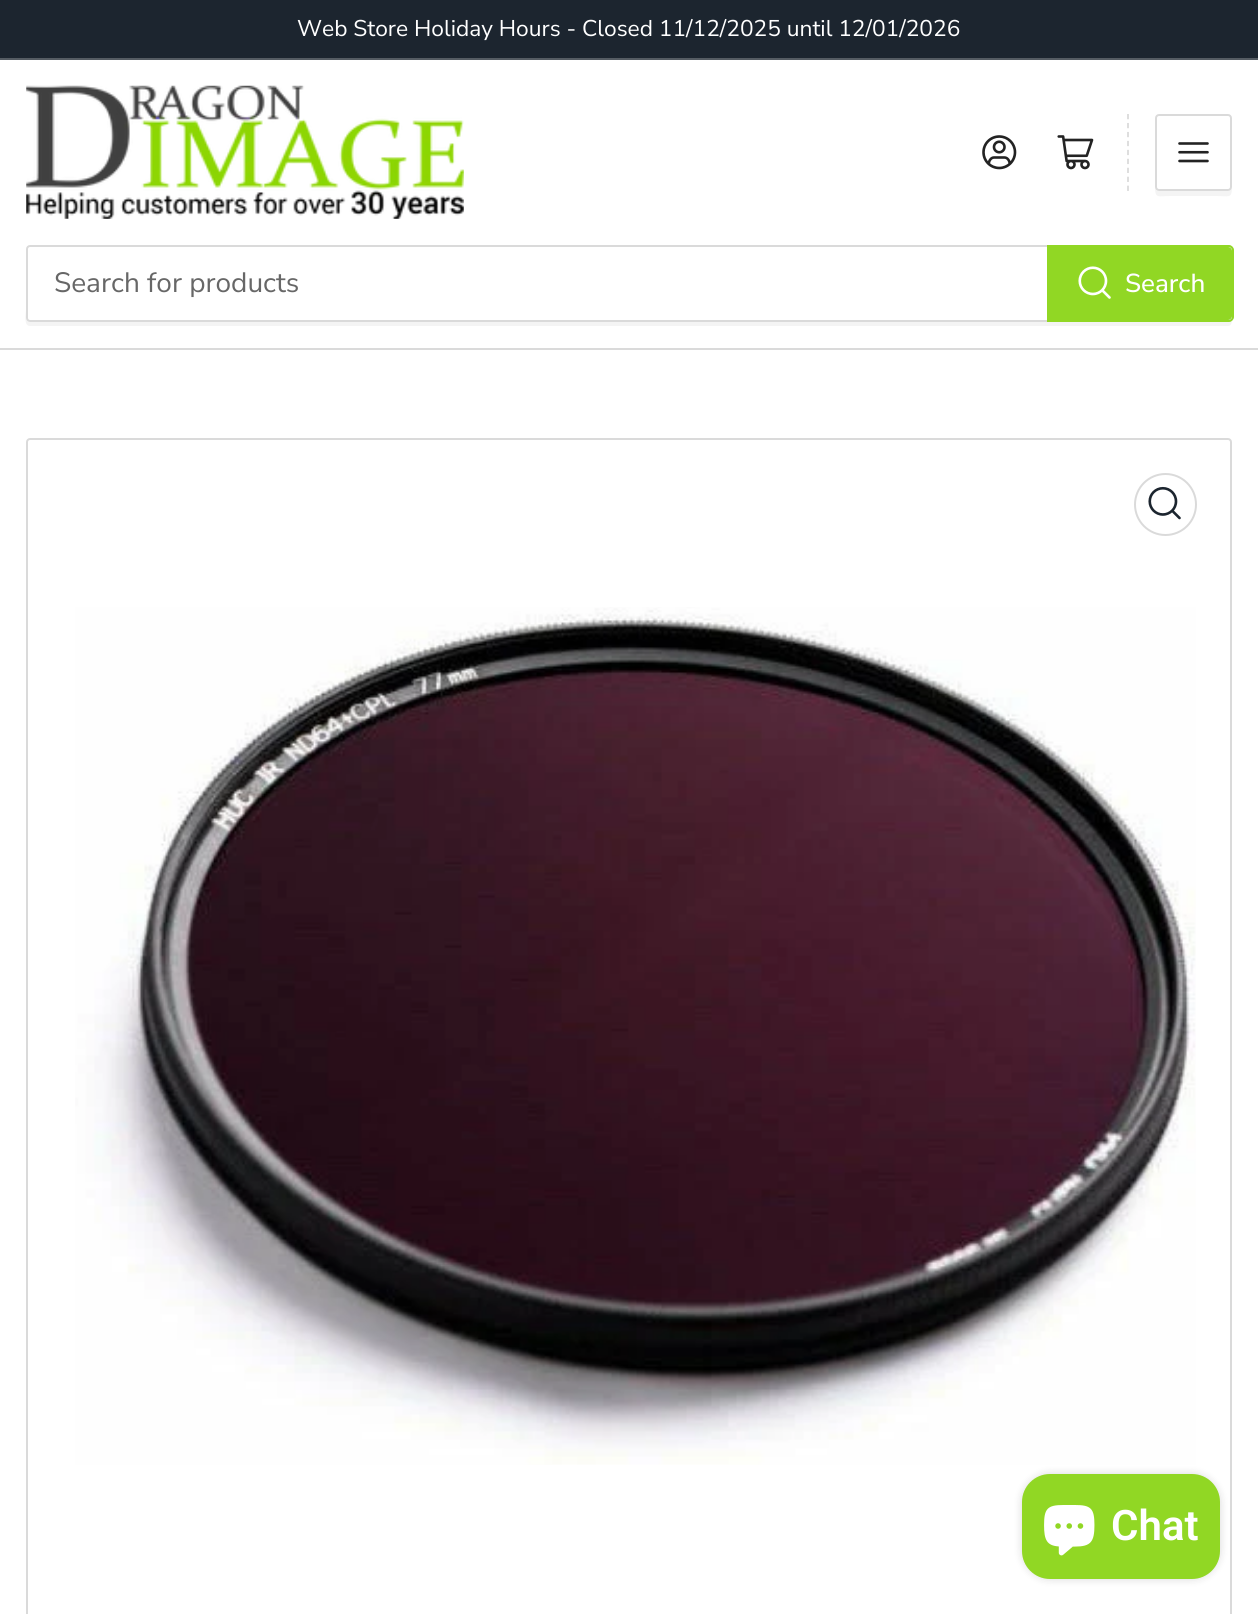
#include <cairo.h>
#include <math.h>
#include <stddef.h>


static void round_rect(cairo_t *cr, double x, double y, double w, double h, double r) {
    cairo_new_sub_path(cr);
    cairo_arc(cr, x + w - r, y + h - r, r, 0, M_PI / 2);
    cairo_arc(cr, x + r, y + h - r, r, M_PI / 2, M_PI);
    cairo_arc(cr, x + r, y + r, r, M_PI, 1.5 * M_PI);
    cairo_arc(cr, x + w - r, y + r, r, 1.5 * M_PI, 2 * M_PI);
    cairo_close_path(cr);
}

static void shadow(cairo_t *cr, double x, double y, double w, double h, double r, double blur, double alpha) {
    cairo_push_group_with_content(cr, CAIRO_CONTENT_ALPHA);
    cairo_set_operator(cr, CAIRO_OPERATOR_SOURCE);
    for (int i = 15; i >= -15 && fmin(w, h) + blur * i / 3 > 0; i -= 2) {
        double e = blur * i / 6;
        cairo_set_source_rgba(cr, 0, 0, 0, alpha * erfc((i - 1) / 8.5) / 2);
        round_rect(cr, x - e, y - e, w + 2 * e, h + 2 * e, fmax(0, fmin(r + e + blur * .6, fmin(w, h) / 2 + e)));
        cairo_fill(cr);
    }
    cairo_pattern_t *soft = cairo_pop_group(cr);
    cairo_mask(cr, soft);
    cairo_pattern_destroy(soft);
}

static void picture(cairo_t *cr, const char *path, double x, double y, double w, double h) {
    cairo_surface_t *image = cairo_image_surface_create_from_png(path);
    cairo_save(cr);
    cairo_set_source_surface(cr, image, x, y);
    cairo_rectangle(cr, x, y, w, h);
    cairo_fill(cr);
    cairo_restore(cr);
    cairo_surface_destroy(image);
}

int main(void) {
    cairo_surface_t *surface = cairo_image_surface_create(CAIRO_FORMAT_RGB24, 1258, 1614);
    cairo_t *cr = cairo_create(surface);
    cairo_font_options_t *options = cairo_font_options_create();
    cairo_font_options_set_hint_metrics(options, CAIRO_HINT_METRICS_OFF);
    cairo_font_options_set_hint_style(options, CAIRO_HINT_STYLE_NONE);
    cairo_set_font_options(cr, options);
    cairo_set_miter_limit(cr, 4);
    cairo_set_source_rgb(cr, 1, 1, 1);
    cairo_paint(cr);
    cairo_set_source_rgb(cr, 0.11, 0.145, 0.184);
    cairo_rectangle(cr, 0, 0, 1258, 58);
    cairo_fill(cr);
    cairo_set_source_rgb(cr, 0.333, 0.361, 0.388);
    cairo_rectangle(cr, 0, 58, 1258, 2);
    cairo_fill(cr);
    cairo_select_font_face(cr, "Nunito Sans", CAIRO_FONT_SLANT_NORMAL, CAIRO_FONT_WEIGHT_NORMAL);
    cairo_set_font_size(cr, 22.75);
    cairo_set_source_rgb(cr, 1, 1, 1);
    cairo_move_to(cr, 297, 36);
    cairo_show_text(cr, "Web Store Holiday Hours - Closed 11/12/2025 until 12/01/2026");
    cairo_set_source_rgb(cr, 0.855, 0.855, 0.855);
    cairo_rectangle(cr, 0, 348, 1258, 2);
    cairo_fill(cr);
    picture(cr, "img1.png", 26, 85, 438, 134);
    picture(cr, "img2.png", 982, 135, 35, 35);
    picture(cr, "img3.png", 1057, 135, 37, 35);
    cairo_new_path(cr);
    cairo_move_to(cr, 1128, 114);
    cairo_line_to(cr, 1128, 191);
    cairo_set_line_width(cr, 1.8);
    cairo_set_dash(cr, (double[]){5.25, 3.71}, 2, 0);
    cairo_stroke(cr);
    cairo_set_source_rgb(cr, 0.957, 0.957, 0.957);
    cairo_new_path(cr);
    cairo_move_to(cr, 1155, 187);
    cairo_curve_to(cr, 1155, 199, 1158, 196, 1170, 196);
    cairo_line_to(cr, 1216, 196);
    cairo_curve_to(cr, 1229, 196, 1232, 199, 1232, 187);
    cairo_curve_to(cr, 1232, 189, 1230, 191, 1228, 191);
    cairo_line_to(cr, 1158, 191);
    cairo_curve_to(cr, 1157, 191, 1155, 189, 1155, 187);
    cairo_close_path(cr);
    cairo_fill(cr);
    round_rect(cr, 1156, 115, 75, 75, 3);
    cairo_set_source_rgb(cr, 0.855, 0.855, 0.855);
    cairo_set_line_width(cr, 2);
    cairo_set_dash(cr, NULL, 0, 0);
    cairo_stroke(cr);
    picture(cr, "img4.png", 1178, 142, 31, 21);
    cairo_set_source_rgb(cr, 0.957, 0.957, 0.957);
    cairo_new_path(cr);
    cairo_move_to(cr, 26, 252);
    cairo_line_to(cr, 26, 310);
    cairo_curve_to(cr, 26, 312, 23, 326, 30, 326);
    cairo_line_to(cr, 1228, 326);
    cairo_curve_to(cr, 1232, 326, 1232, 321, 1232, 318);
    cairo_curve_to(cr, 1232, 320, 1230, 322, 1228, 322);
    cairo_line_to(cr, 30, 322);
    cairo_curve_to(cr, 28, 322, 26, 320, 26, 318);
    cairo_close_path(cr);
    cairo_fill(cr);
    cairo_set_source_rgb(cr, 1, 1, 1);
    round_rect(cr, 27, 246, 1204, 75, 3);
    cairo_fill_preserve(cr);
    cairo_set_source_rgb(cr, 0.855, 0.855, 0.855);
    cairo_stroke(cr);
    cairo_set_font_size(cr, 28);
    cairo_set_source_rgb(cr, 0.404, 0.404, 0.404);
    cairo_move_to(cr, 54, 292);
    cairo_show_text(cr, "Search for products");
    cairo_new_path(cr);
    cairo_move_to(cr, 1048, 246);
    cairo_line_to(cr, 1229, 246);
    cairo_curve_to(cr, 1231, 246, 1233, 248, 1233, 250);
    cairo_line_to(cr, 1233, 317);
    cairo_curve_to(cr, 1233, 319, 1231, 321, 1229, 321);
    cairo_line_to(cr, 1048, 321);
    cairo_close_path(cr);
    cairo_set_source_rgb(cr, 0.569, 0.843, 0.141);
    cairo_stroke(cr);
    cairo_new_path(cr);
    cairo_move_to(cr, 1048, 247);
    cairo_line_to(cr, 1228, 247);
    cairo_curve_to(cr, 1230, 247, 1232, 249, 1232, 251);
    cairo_line_to(cr, 1232, 316);
    cairo_curve_to(cr, 1232, 318, 1230, 320, 1228, 320);
    cairo_line_to(cr, 1048, 320);
    cairo_close_path(cr);
    cairo_fill(cr);
    picture(cr, "img5.png", 1078, 266, 33, 33);
    cairo_select_font_face(cr, "Nunito Sans Medium", CAIRO_FONT_SLANT_NORMAL, CAIRO_FONT_WEIGHT_NORMAL);
    cairo_set_font_size(cr, 26);
    cairo_set_source_rgb(cr, 1, 1, 1);
    cairo_move_to(cr, 1125, 292);
    cairo_show_text(cr, "Search");
    round_rect(cr, 27, 439, 1204, 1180, 3);
    cairo_set_source_rgb(cr, 0.855, 0.855, 0.855);
    cairo_stroke(cr);
    cairo_arc(cr, 1165.5, 504.5, 30.5, 0, 2 * M_PI);
    cairo_stroke(cr);
    picture(cr, "img6.png", 1148, 486, 33, 34);
    picture(cr, "img7.png", 75, 607, 1121, 858);
    cairo_set_source_rgb(cr, 0, 0, 0);
    shadow(cr, 1022, 1474, 198, 105, 28, 4.5, 0.15);
    cairo_set_source_rgb(cr, 0.569, 0.843, 0.141);
    round_rect(cr, 1022, 1474, 198, 105, 28);
    cairo_fill(cr);
    picture(cr, "img8.png", 1044, 1505, 51, 51);
    cairo_select_font_face(cr, "Roboto SemiBold", CAIRO_FONT_SLANT_NORMAL, CAIRO_FONT_WEIGHT_NORMAL);
    cairo_set_font_size(cr, 42);
    cairo_set_source_rgb(cr, 1, 1, 1);
    cairo_move_to(cr, 1111, 1540);
    cairo_show_text(cr, "Chat");
    cairo_surface_write_to_png(surface, "page.png");
    cairo_font_options_destroy(options);
    cairo_destroy(cr);
    cairo_surface_destroy(surface);
    return 0;
}
